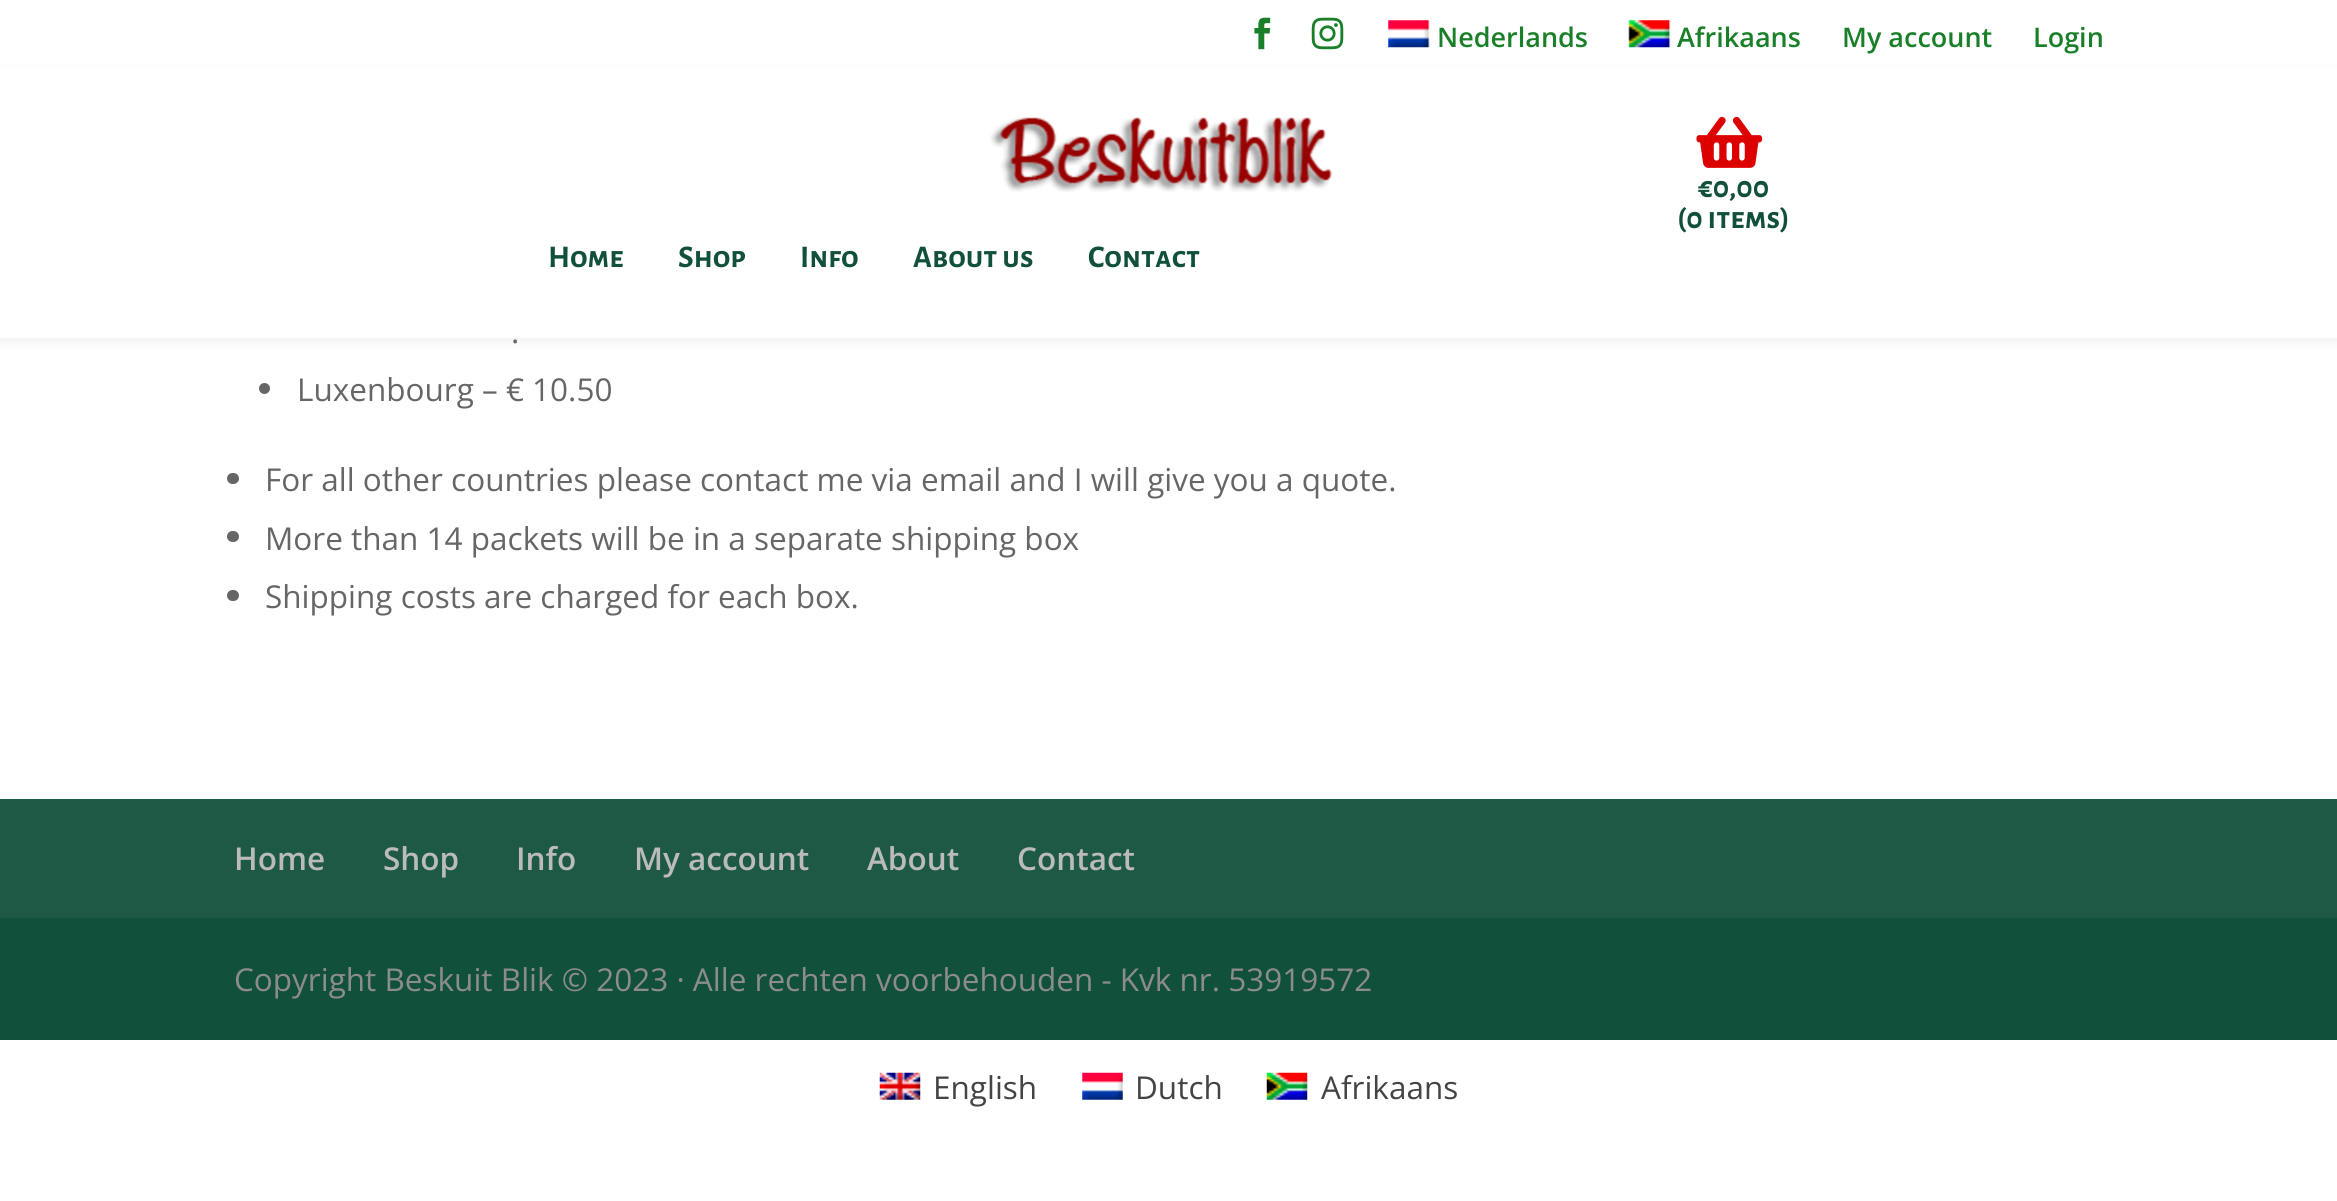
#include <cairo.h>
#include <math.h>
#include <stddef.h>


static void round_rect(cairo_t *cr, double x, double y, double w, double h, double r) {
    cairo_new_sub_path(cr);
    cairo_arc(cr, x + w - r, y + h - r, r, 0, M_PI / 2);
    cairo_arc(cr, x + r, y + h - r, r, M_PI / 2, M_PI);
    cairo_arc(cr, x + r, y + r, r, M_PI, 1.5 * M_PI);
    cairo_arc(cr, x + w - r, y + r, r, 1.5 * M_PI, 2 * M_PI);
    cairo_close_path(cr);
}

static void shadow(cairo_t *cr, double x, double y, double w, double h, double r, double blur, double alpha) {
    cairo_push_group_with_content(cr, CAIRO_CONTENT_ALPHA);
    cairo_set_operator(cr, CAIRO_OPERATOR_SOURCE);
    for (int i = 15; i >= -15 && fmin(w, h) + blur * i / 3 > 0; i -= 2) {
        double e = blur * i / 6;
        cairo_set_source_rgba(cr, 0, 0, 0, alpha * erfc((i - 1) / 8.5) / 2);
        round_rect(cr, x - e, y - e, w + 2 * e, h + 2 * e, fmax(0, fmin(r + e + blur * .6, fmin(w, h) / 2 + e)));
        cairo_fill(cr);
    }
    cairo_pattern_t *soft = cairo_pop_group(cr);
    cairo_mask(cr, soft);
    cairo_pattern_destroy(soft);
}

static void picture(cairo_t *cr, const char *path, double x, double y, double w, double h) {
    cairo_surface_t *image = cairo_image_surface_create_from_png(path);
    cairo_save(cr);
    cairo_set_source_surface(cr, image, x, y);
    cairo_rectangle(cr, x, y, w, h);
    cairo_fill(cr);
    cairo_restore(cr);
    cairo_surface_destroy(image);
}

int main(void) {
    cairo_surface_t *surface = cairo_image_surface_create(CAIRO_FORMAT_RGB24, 2337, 1201);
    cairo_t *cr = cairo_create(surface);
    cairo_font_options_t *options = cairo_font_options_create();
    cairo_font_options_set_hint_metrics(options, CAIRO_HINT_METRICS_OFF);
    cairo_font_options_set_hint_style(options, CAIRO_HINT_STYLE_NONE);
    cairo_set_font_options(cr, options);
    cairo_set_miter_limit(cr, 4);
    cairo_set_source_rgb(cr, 1, 1, 1);
    cairo_paint(cr);
    picture(cr, "img1.png", 1254, 17, 17, 33);
    picture(cr, "img2.png", 1311, 17, 33, 33);
    picture(cr, "img3.png", 1388, 20, 42, 28);
    cairo_select_font_face(cr, "Open Sans SemiBold", CAIRO_FONT_SLANT_NORMAL, CAIRO_FONT_WEIGHT_NORMAL);
    cairo_set_font_size(cr, 27);
    cairo_set_source_rgb(cr, 0.098, 0.498, 0.157);
    cairo_move_to(cr, 1437, 47);
    cairo_show_text(cr, "Nederlands");
    picture(cr, "img4.png", 1628, 20, 43, 28);
    cairo_move_to(cr, 1677, 47);
    cairo_show_text(cr, "Afrikaans");
    cairo_set_source_rgb(cr, 0, 0, 0);
    shadow(cr, 0, 77, 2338, 261, 0, 8, 0.1);
    cairo_set_source_rgb(cr, 0.098, 0.498, 0.157);
    cairo_move_to(cr, 1842, 47);
    cairo_show_text(cr, "My account");
    cairo_move_to(cr, 2033, 47);
    cairo_show_text(cr, "Login");
    cairo_set_source_rgb(cr, 1, 1, 1);
    cairo_rectangle(cr, 0, 67, 2337, 271);
    cairo_fill(cr);
    picture(cr, "img5.png", 990, 117, 343, 75);
    picture(cr, "img6.png", 1696, 116, 67, 52);
    cairo_select_font_face(cr, "Alegreya Sans SC", CAIRO_FONT_SLANT_NORMAL, CAIRO_FONT_WEIGHT_BOLD);
    cairo_set_font_size(cr, 31.5);
    cairo_set_source_rgb(cr, 0.067, 0.314, 0.231);
    cairo_move_to(cr, 1698, 197);
    cairo_show_text(cr, "€0,00");
    cairo_move_to(cr, 1677, 228);
    cairo_show_text(cr, "(0 items)");
    cairo_move_to(cr, 548, 267);
    cairo_show_text(cr, "Home");
    cairo_move_to(cr, 678, 267);
    cairo_show_text(cr, "Shop");
    cairo_move_to(cr, 800, 267);
    cairo_show_text(cr, "Info");
    cairo_move_to(cr, 913, 267);
    cairo_show_text(cr, "About us");
    cairo_move_to(cr, 1088, 267);
    cairo_show_text(cr, "Contact");
    cairo_select_font_face(cr, "Open Sans", CAIRO_FONT_SLANT_NORMAL, CAIRO_FONT_WEIGHT_NORMAL);
    cairo_set_source_rgb(cr, 0.4, 0.4, 0.4);
    cairo_move_to(cr, 511, 343);
    cairo_show_text(cr, ".");
    cairo_new_path(cr);
    cairo_arc(cr, 264.5, 388.5, 5.5, 0, 2 * M_PI);
    cairo_fill(cr);
    cairo_move_to(cr, 297, 401);
    cairo_show_text(cr, "Luxenbourg – € 10.50");
    round_rect(cr, 227, 473, 12, 11, 5.5);
    cairo_fill(cr);
    cairo_move_to(cr, 265, 491);
    cairo_show_text(cr, "For all other countries please contact me via email and I will give you a quote.");
    round_rect(cr, 227, 531, 12, 11, 5.5);
    cairo_fill(cr);
    cairo_move_to(cr, 265, 550);
    cairo_show_text(cr, "More than 14 packets will be in a separate shipping box");
    round_rect(cr, 227, 590, 12, 11, 5.5);
    cairo_fill(cr);
    cairo_move_to(cr, 265, 608);
    cairo_show_text(cr, "Shipping costs are charged for each box.");
    cairo_set_source_rgb(cr, 0.067, 0.314, 0.231);
    cairo_rectangle(cr, 0, 918, 2337, 122);
    cairo_fill(cr);
    cairo_set_source_rgb(cr, 0.114, 0.349, 0.271);
    cairo_rectangle(cr, 0, 799, 2337, 119);
    cairo_fill(cr);
    cairo_select_font_face(cr, "Open Sans SemiBold", CAIRO_FONT_SLANT_NORMAL, CAIRO_FONT_WEIGHT_NORMAL);
    cairo_set_source_rgb(cr, 0.733, 0.733, 0.733);
    cairo_move_to(cr, 234, 870);
    cairo_show_text(cr, "Home");
    cairo_move_to(cr, 383, 870);
    cairo_show_text(cr, "Shop");
    cairo_move_to(cr, 516, 870);
    cairo_show_text(cr, "Info");
    cairo_move_to(cr, 634, 870);
    cairo_show_text(cr, "My account");
    cairo_move_to(cr, 867, 870);
    cairo_show_text(cr, "About");
    cairo_move_to(cr, 1017, 870);
    cairo_show_text(cr, "Contact");
    cairo_select_font_face(cr, "Open Sans", CAIRO_FONT_SLANT_NORMAL, CAIRO_FONT_WEIGHT_NORMAL);
    cairo_set_source_rgb(cr, 0.549, 0.549, 0.549);
    cairo_move_to(cr, 234, 991);
    cairo_show_text(cr, "Copyright Beskuit Blik © 2023 · Alle rechten voorbehouden - Kvk nr. 53919572");
    picture(cr, "img7.png", 879, 1072, 42, 28);
    cairo_set_source_rgb(cr, 0.267, 0.267, 0.267);
    cairo_move_to(cr, 933, 1099);
    cairo_show_text(cr, "English");
    picture(cr, "img8.png", 1082, 1072, 41, 28);
    cairo_move_to(cr, 1135, 1099);
    cairo_show_text(cr, "Dutch");
    picture(cr, "img9.png", 1266, 1072, 42, 28);
    cairo_move_to(cr, 1321, 1099);
    cairo_show_text(cr, "Afrikaans");
    cairo_surface_write_to_png(surface, "page.png");
    cairo_font_options_destroy(options);
    cairo_destroy(cr);
    cairo_surface_destroy(surface);
    return 0;
}
